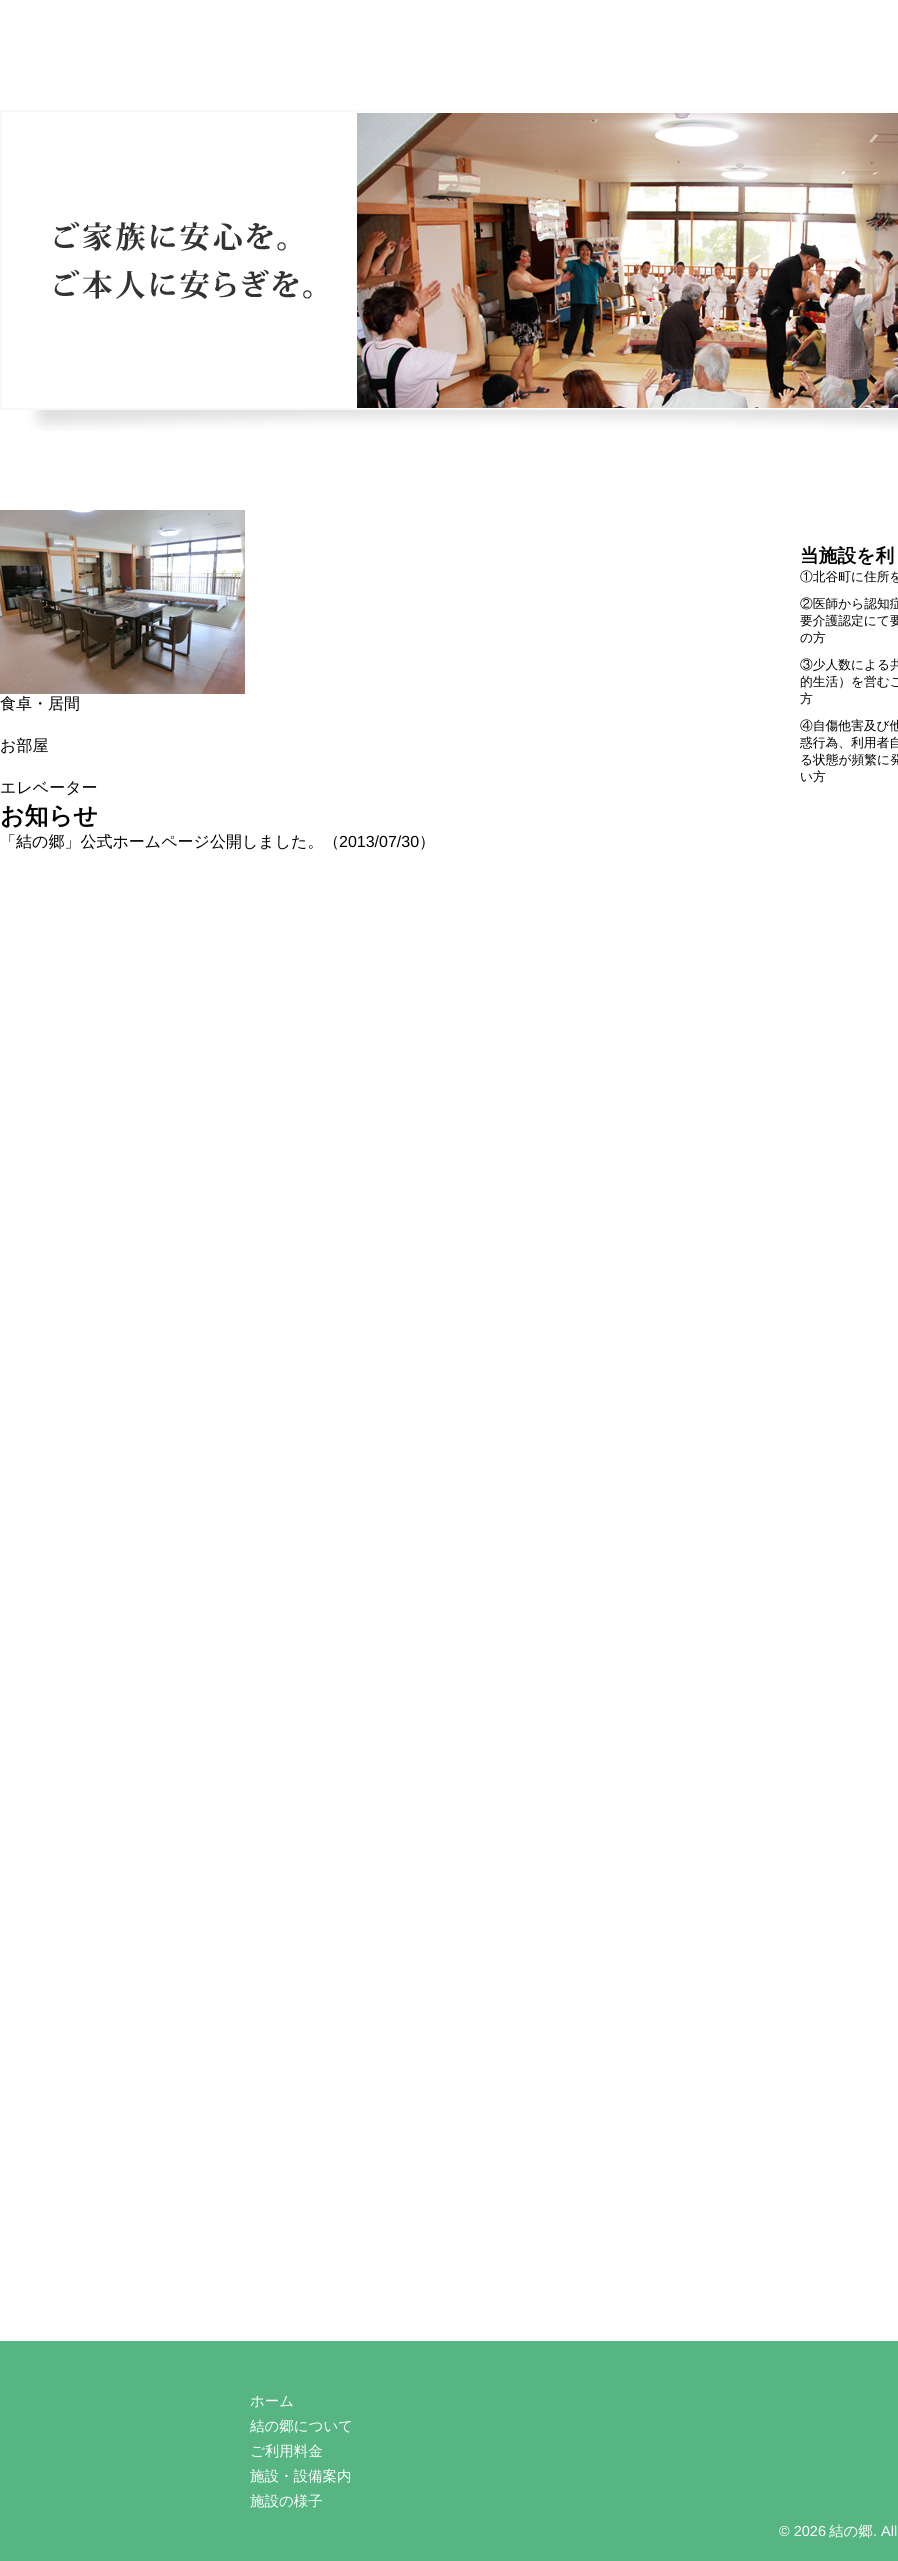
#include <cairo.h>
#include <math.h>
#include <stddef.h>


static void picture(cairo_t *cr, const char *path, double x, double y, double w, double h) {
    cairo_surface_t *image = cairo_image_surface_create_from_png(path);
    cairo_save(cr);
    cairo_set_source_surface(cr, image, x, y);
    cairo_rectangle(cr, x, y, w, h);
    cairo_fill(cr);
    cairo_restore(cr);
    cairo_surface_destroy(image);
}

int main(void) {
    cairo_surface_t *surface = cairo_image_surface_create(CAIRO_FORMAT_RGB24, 898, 2561);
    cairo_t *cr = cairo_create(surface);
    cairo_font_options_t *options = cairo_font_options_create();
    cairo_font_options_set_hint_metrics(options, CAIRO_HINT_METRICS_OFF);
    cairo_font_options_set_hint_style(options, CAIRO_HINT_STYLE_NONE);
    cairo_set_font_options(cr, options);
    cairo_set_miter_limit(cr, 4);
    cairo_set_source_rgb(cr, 1, 1, 1);
    cairo_paint(cr);
    picture(cr, "img1.png", 0, 110, 898, 321);
    picture(cr, "img2.png", 0, 510, 245, 184);
    cairo_select_font_face(cr, "WenQuanYi Zen Hei Medium", CAIRO_FONT_SLANT_NORMAL, CAIRO_FONT_WEIGHT_NORMAL);
    cairo_set_font_size(cr, 16);
    cairo_set_source_rgb(cr, 0, 0, 0);
    cairo_move_to(cr, 0, 709);
    cairo_show_text(cr, "食卓・居間");
    cairo_move_to(cr, 0, 751);
    cairo_show_text(cr, "お部屋");
    cairo_move_to(cr, 0, 793);
    cairo_show_text(cr, "エレベーター");
    cairo_select_font_face(cr, "WenQuanYi Zen Hei", CAIRO_FONT_SLANT_NORMAL, CAIRO_FONT_WEIGHT_BOLD);
    cairo_set_font_size(cr, 24);
    cairo_move_to(cr, 0, 824);
    cairo_show_text(cr, "お知らせ");
    cairo_select_font_face(cr, "WenQuanYi Zen Hei Medium", CAIRO_FONT_SLANT_NORMAL, CAIRO_FONT_WEIGHT_NORMAL);
    cairo_set_font_size(cr, 16);
    cairo_move_to(cr, 0, 847);
    cairo_show_text(cr, "「結の郷」公式ホームページ公開しました。（");
    cairo_select_font_face(cr, "Liberation Sans", CAIRO_FONT_SLANT_NORMAL, CAIRO_FONT_WEIGHT_NORMAL);
    cairo_move_to(cr, 339, 847);
    cairo_show_text(cr, "2013/07/30");
    cairo_select_font_face(cr, "WenQuanYi Zen Hei Medium", CAIRO_FONT_SLANT_NORMAL, CAIRO_FONT_WEIGHT_NORMAL);
    cairo_move_to(cr, 419, 847);
    cairo_show_text(cr, "）");
    cairo_select_font_face(cr, "WenQuanYi Zen Hei", CAIRO_FONT_SLANT_NORMAL, CAIRO_FONT_WEIGHT_BOLD);
    cairo_set_font_size(cr, 18.75);
    cairo_move_to(cr, 800, 562);
    cairo_show_text(cr, "当施設を利");
    cairo_select_font_face(cr, "WenQuanYi Zen Hei Medium", CAIRO_FONT_SLANT_NORMAL, CAIRO_FONT_WEIGHT_NORMAL);
    cairo_set_font_size(cr, 12.75);
    cairo_move_to(cr, 800, 581);
    cairo_show_text(cr, "①北谷町に住所を");
    cairo_move_to(cr, 800, 608);
    cairo_show_text(cr, "②医師から認知症");
    cairo_move_to(cr, 800, 625);
    cairo_show_text(cr, "要介護認定にて要");
    cairo_move_to(cr, 800, 642);
    cairo_show_text(cr, "の方");
    cairo_move_to(cr, 800, 669);
    cairo_show_text(cr, "③少人数による共");
    cairo_move_to(cr, 800, 686);
    cairo_show_text(cr, "的生活）を営むこ");
    cairo_move_to(cr, 800, 703);
    cairo_show_text(cr, "方");
    cairo_move_to(cr, 800, 730);
    cairo_show_text(cr, "④自傷他害及び他");
    cairo_move_to(cr, 800, 747);
    cairo_show_text(cr, "惑行為、利用者自");
    cairo_move_to(cr, 800, 764);
    cairo_show_text(cr, "る状態が頻繁に発");
    cairo_move_to(cr, 800, 781);
    cairo_show_text(cr, "い方");
    cairo_set_source_rgb(cr, 0.341, 0.71, 0.514);
    cairo_rectangle(cr, 0, 2341, 898, 220);
    cairo_fill(cr);
    cairo_set_font_size(cr, 14.5);
    cairo_set_source_rgb(cr, 1, 1, 1);
    cairo_move_to(cr, 250, 2406);
    cairo_show_text(cr, "ホーム");
    cairo_move_to(cr, 250, 2431);
    cairo_show_text(cr, "結の郷について");
    cairo_move_to(cr, 250, 2456);
    cairo_show_text(cr, "ご利用料金");
    cairo_move_to(cr, 250, 2481);
    cairo_show_text(cr, "施設・設備案内");
    cairo_move_to(cr, 250, 2506);
    cairo_show_text(cr, "施設の様子");
    cairo_select_font_face(cr, "Liberation Sans", CAIRO_FONT_SLANT_NORMAL, CAIRO_FONT_WEIGHT_NORMAL);
    cairo_move_to(cr, 779, 2536);
    cairo_show_text(cr, "© 2026");
    cairo_select_font_face(cr, "WenQuanYi Zen Hei Medium", CAIRO_FONT_SLANT_NORMAL, CAIRO_FONT_WEIGHT_NORMAL);
    cairo_move_to(cr, 829, 2536);
    cairo_show_text(cr, "結の郷");
    cairo_select_font_face(cr, "Liberation Sans", CAIRO_FONT_SLANT_NORMAL, CAIRO_FONT_WEIGHT_NORMAL);
    cairo_move_to(cr, 873, 2536);
    cairo_show_text(cr, ". All");
    cairo_surface_write_to_png(surface, "page.png");
    cairo_font_options_destroy(options);
    cairo_destroy(cr);
    cairo_surface_destroy(surface);
    return 0;
}
